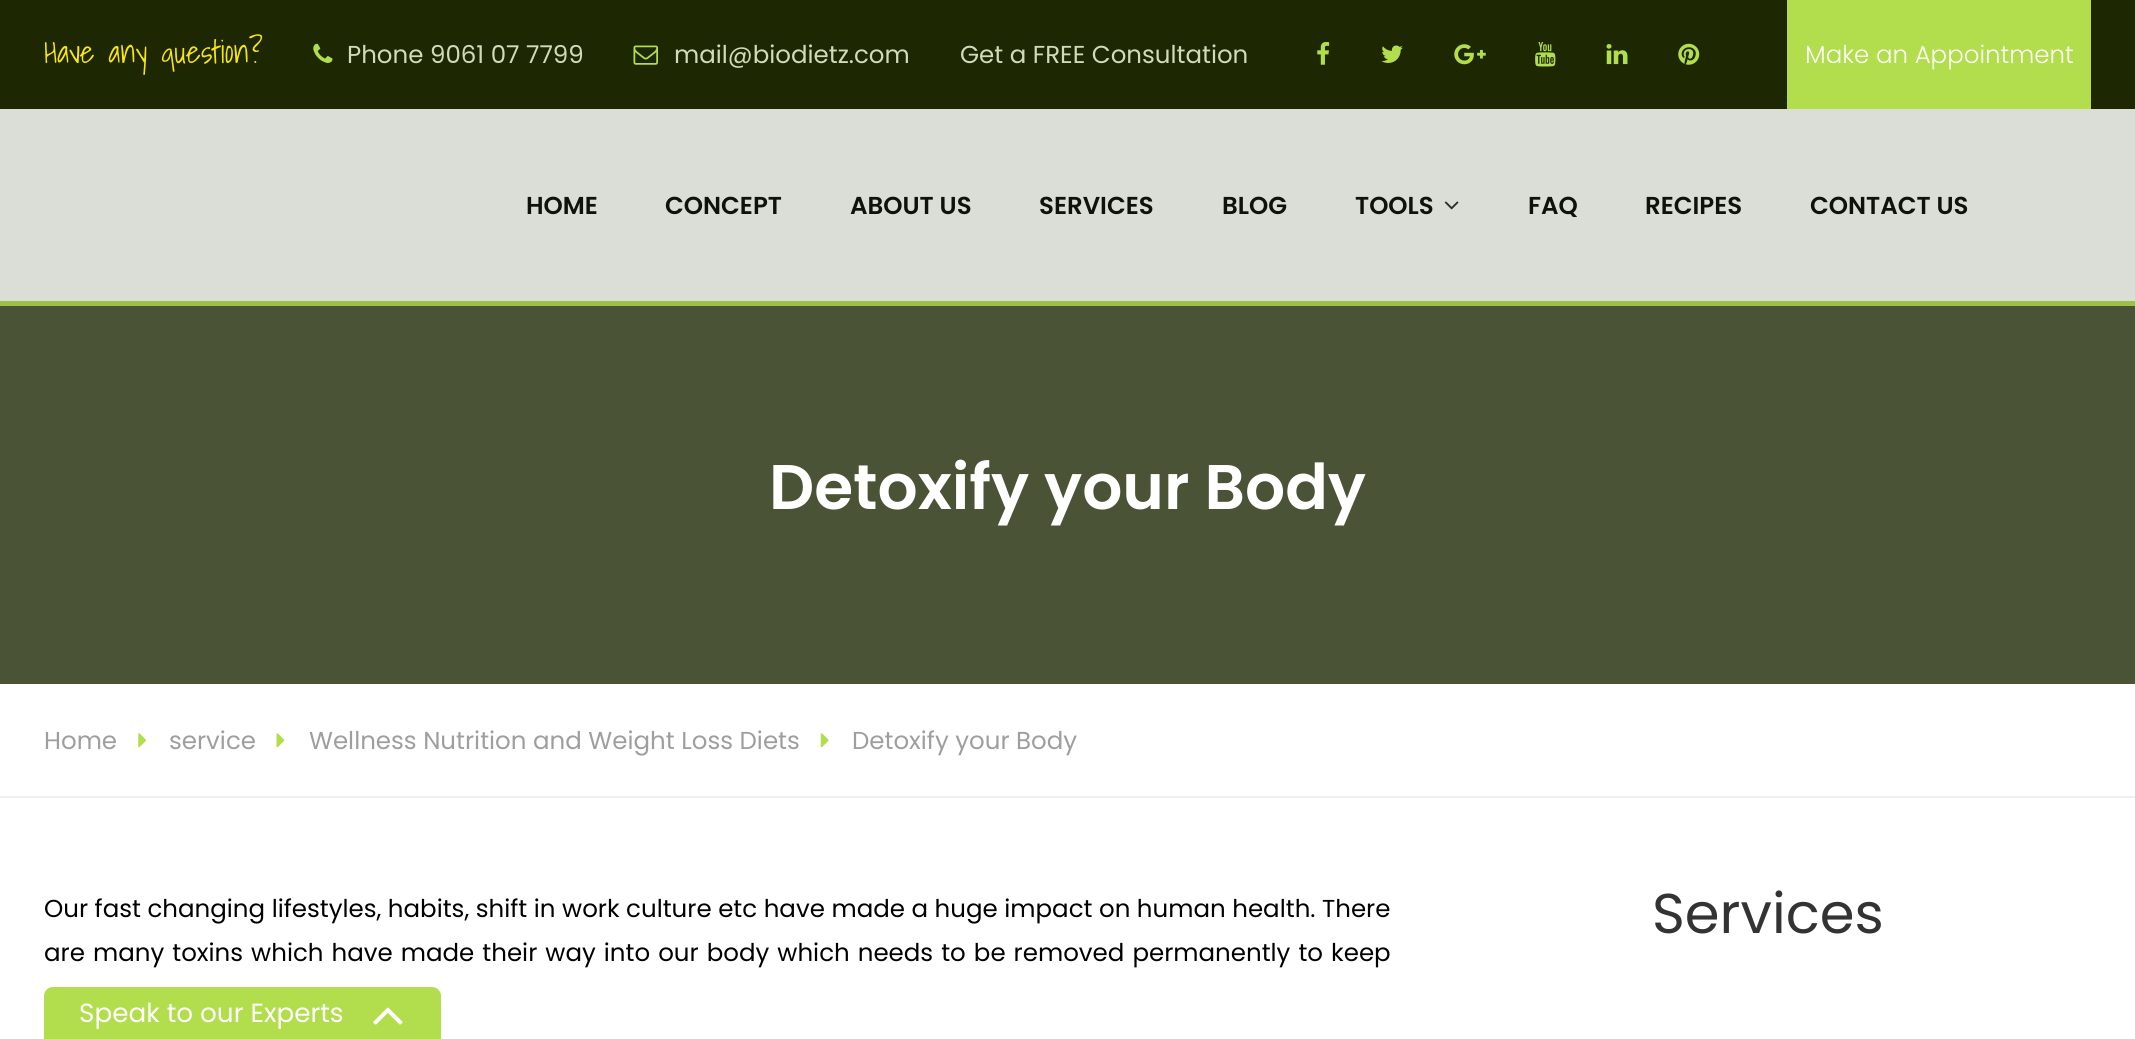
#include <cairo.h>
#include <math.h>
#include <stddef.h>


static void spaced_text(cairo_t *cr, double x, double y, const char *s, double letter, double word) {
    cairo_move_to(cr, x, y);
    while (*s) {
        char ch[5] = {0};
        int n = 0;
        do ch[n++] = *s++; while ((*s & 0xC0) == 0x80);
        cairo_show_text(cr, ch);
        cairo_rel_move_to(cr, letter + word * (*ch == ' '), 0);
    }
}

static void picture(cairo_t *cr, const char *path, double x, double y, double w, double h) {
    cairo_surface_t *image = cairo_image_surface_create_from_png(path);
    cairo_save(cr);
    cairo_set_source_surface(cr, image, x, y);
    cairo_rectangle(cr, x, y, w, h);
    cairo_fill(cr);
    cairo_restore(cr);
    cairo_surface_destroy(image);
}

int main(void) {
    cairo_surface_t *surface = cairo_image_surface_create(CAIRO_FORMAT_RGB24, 2135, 1039);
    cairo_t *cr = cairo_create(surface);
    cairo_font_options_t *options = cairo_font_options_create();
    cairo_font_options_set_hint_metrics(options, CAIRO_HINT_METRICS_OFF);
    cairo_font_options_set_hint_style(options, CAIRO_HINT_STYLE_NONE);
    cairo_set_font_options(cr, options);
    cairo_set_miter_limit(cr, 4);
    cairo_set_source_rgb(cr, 1, 1, 1);
    cairo_paint(cr);
    cairo_set_source_rgb(cr, 0.114, 0.157, 0.008);
    cairo_rectangle(cr, 0, 0, 2135, 109);
    cairo_fill(cr);
    cairo_select_font_face(cr, "Shadows Into Light Light", CAIRO_FONT_SLANT_NORMAL, CAIRO_FONT_WEIGHT_NORMAL);
    cairo_set_font_size(cr, 31.5);
    cairo_set_source_rgb(cr, 0.976, 0.902, 0.055);
    cairo_move_to(cr, 44, 63);
    cairo_show_text(cr, "Have any question?");
    picture(cr, "img1.png", 313, 43, 20, 20);
    cairo_select_font_face(cr, "Poppins", CAIRO_FONT_SLANT_NORMAL, CAIRO_FONT_WEIGHT_NORMAL);
    cairo_set_font_size(cr, 24.5);
    cairo_set_source_rgb(cr, 0.82, 0.859, 0.722);
    cairo_move_to(cr, 347, 63);
    cairo_show_text(cr, "Phone 9061 07 7799");
    picture(cr, "img2.png", 633, 45, 25, 20);
    cairo_move_to(cr, 674, 63);
    cairo_show_text(cr, "mail@biodietz.com");
    cairo_move_to(cr, 960, 63);
    cairo_show_text(cr, "Get a FREE Consultation");
    picture(cr, "img3.png", 1317, 42, 13, 23);
    picture(cr, "img4.png", 1381, 45, 22, 18);
    picture(cr, "img5.png", 1454, 44, 32, 21);
    picture(cr, "img6.png", 1535, 42, 21, 25);
    picture(cr, "img7.png", 1606, 44, 22, 21);
    picture(cr, "img8.png", 1678, 43, 22, 22);
    cairo_set_source_rgb(cr, 0.698, 0.867, 0.298);
    cairo_rectangle(cr, 1787, 0, 304, 109);
    cairo_fill(cr);
    cairo_select_font_face(cr, "Poppins Light", CAIRO_FONT_SLANT_NORMAL, CAIRO_FONT_WEIGHT_NORMAL);
    cairo_set_source_rgb(cr, 1, 1, 1);
    cairo_move_to(cr, 1805, 63);
    cairo_show_text(cr, "Make an Appointment");
    cairo_set_source_rgb(cr, 0.859, 0.867, 0.843);
    cairo_rectangle(cr, 0, 109, 2135, 192);
    cairo_fill(cr);
    cairo_set_source_rgb(cr, 0.616, 0.757, 0.278);
    cairo_rectangle(cr, 0, 301, 2135, 5);
    cairo_fill(cr);
    cairo_select_font_face(cr, "Poppins SemiBold", CAIRO_FONT_SLANT_NORMAL, CAIRO_FONT_WEIGHT_NORMAL);
    cairo_set_source_rgb(cr, 0.059, 0.067, 0.043);
    cairo_move_to(cr, 526, 214);
    cairo_show_text(cr, "HOME");
    cairo_move_to(cr, 665, 214);
    cairo_show_text(cr, "CONCEPT");
    cairo_move_to(cr, 850, 214);
    cairo_show_text(cr, "ABOUT US");
    cairo_move_to(cr, 1039, 214);
    cairo_show_text(cr, "SERVICES");
    cairo_move_to(cr, 1222, 214);
    cairo_show_text(cr, "BLOG");
    cairo_move_to(cr, 1355, 214);
    cairo_show_text(cr, "TOOLS");
    picture(cr, "img9.png", 1444, 201, 15, 9);
    cairo_move_to(cr, 1528, 214);
    cairo_show_text(cr, "FAQ");
    cairo_move_to(cr, 1645, 214);
    cairo_show_text(cr, "RECIPES");
    cairo_move_to(cr, 1810, 214);
    cairo_show_text(cr, "CONTACT US");
    cairo_set_source_rgb(cr, 0.29, 0.325, 0.208);
    cairo_rectangle(cr, 0, 306, 2135, 378);
    cairo_fill(cr);
    cairo_set_font_size(cr, 63);
    cairo_set_source_rgb(cr, 1, 1, 1);
    cairo_move_to(cr, 769, 509);
    cairo_show_text(cr, "Detoxify your Body");
    cairo_set_source_rgb(cr, 0.941, 0.941, 0.941);
    cairo_rectangle(cr, 0, 796, 2135, 2);
    cairo_fill(cr);
    cairo_select_font_face(cr, "Poppins", CAIRO_FONT_SLANT_NORMAL, CAIRO_FONT_WEIGHT_NORMAL);
    cairo_set_font_size(cr, 24.5);
    cairo_set_source_rgb(cr, 0.62, 0.62, 0.62);
    cairo_move_to(cr, 44, 749);
    cairo_show_text(cr, "Home");
    picture(cr, "img10.png", 138, 733, 9, 15);
    cairo_move_to(cr, 169, 749);
    cairo_show_text(cr, "service");
    picture(cr, "img11.png", 276, 733, 9, 15);
    cairo_move_to(cr, 309, 749);
    cairo_show_text(cr, "Wellness Nutrition and Weight Loss Diets");
    picture(cr, "img12.png", 820, 733, 9, 15);
    cairo_move_to(cr, 852, 749);
    cairo_show_text(cr, "Detoxify your Body");
    cairo_set_source_rgb(cr, 0, 0, 0);
    cairo_move_to(cr, 44, 917);
    cairo_show_text(cr, "Our fast changing lifestyles, habits, shift in work culture etc have made a huge impact on human health. There");
    spaced_text(cr, 44, 961, "are many toxins which have made their way into our body which needs to be removed permanently to keep", 0, 1.5);
    cairo_set_font_size(cr, 56);
    cairo_set_source_rgb(cr, 0.2, 0.2, 0.2);
    cairo_move_to(cr, 1652, 933);
    cairo_show_text(cr, "Services");
    cairo_set_source_rgb(cr, 0.698, 0.867, 0.298);
    cairo_new_path(cr);
    cairo_move_to(cr, 53, 987);
    cairo_line_to(cr, 432, 987);
    cairo_curve_to(cr, 437, 987, 441, 991, 441, 996);
    cairo_line_to(cr, 441, 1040);
    cairo_line_to(cr, 44, 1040);
    cairo_line_to(cr, 44, 996);
    cairo_curve_to(cr, 44, 991, 48, 987, 53, 987);
    cairo_close_path(cr);
    cairo_fill(cr);
    cairo_set_font_size(cr, 26.25);
    cairo_set_source_rgb(cr, 1, 1, 1);
    cairo_move_to(cr, 79, 1022);
    cairo_show_text(cr, "Speak to our Experts");
    picture(cr, "img13.png", 373, 1007, 30, 18);
    cairo_surface_write_to_png(surface, "page.png");
    cairo_font_options_destroy(options);
    cairo_destroy(cr);
    cairo_surface_destroy(surface);
    return 0;
}
